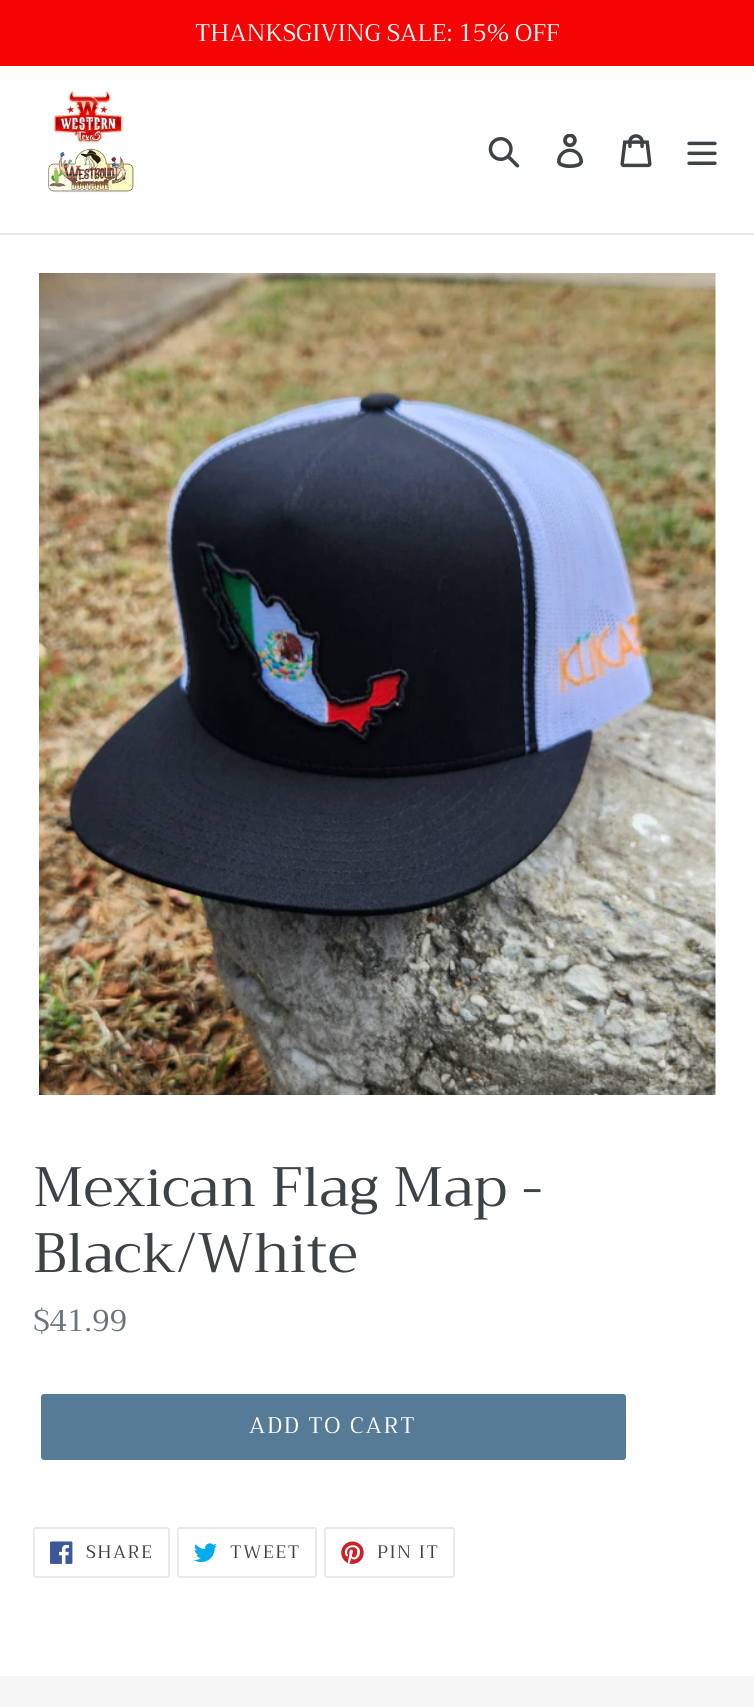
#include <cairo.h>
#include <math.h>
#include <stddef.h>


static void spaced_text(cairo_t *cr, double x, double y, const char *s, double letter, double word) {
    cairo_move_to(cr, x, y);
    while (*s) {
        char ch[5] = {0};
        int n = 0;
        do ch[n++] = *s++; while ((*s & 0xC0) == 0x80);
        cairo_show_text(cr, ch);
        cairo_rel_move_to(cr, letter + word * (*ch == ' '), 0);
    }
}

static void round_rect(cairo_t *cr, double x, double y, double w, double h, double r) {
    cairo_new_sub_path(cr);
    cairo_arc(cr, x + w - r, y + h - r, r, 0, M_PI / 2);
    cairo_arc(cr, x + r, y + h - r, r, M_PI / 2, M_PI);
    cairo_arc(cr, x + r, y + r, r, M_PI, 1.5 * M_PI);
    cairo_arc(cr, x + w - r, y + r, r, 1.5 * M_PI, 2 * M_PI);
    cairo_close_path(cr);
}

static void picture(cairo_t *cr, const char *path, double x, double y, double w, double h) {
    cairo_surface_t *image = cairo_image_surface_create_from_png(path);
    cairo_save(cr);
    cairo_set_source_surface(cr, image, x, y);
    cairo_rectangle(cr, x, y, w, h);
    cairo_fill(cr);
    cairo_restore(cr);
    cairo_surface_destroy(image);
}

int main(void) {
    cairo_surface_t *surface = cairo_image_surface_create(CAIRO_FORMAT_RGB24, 754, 1707);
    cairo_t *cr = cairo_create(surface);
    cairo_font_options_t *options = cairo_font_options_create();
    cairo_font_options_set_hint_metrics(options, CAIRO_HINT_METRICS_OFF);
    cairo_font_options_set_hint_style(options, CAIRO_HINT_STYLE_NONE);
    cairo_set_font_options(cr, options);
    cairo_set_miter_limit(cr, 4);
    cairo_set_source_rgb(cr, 1, 1, 1);
    cairo_paint(cr);
    cairo_set_source_rgb(cr, 0.961, 0.012, 0.012);
    cairo_rectangle(cr, 0, 0, 754, 66);
    cairo_fill(cr);
    cairo_select_font_face(cr, "Trirong", CAIRO_FONT_SLANT_NORMAL, CAIRO_FONT_WEIGHT_NORMAL);
    cairo_set_font_size(cr, 24);
    cairo_set_source_rgb(cr, 1, 1, 1);
    cairo_move_to(cr, 195, 41);
    cairo_show_text(cr, "THANKSGIVING SALE: 15% OFF");
    cairo_set_source_rgb(cr, 0.91, 0.914, 0.922);
    cairo_rectangle(cr, 0, 233, 754, 2);
    cairo_fill(cr);
    picture(cr, "img1.png", 47, 88, 87, 106);
    picture(cr, "img2.png", 488, 137, 32, 31);
    picture(cr, "img3.png", 557, 134, 26, 34);
    picture(cr, "img4.png", 620, 134, 32, 34);
    picture(cr, "img5.png", 687, 141, 30, 24);
    picture(cr, "img6.png", 39, 273, 677, 822);
    cairo_set_font_size(cr, 55.5);
    cairo_set_source_rgb(cr, 0.239, 0.259, 0.275);
    cairo_move_to(cr, 33, 1206);
    cairo_show_text(cr, "Mexican Flag Map -");
    cairo_move_to(cr, 33, 1272);
    cairo_show_text(cr, "Black/White");
    cairo_set_font_size(cr, 30);
    cairo_set_source_rgb(cr, 0.412, 0.447, 0.482);
    cairo_move_to(cr, 33, 1331);
    cairo_show_text(cr, "$41.99");
    cairo_set_source_rgb(cr, 0.333, 0.482, 0.592);
    round_rect(cr, 41, 1394, 585, 66, 3);
    cairo_fill(cr);
    cairo_set_font_size(cr, 22.5);
    cairo_set_source_rgb(cr, 1, 1, 1);
    spaced_text(cr, 249, 1433, "ADD TO CART", 1.75, 0);
    round_rect(cr, 34, 1528, 135, 49, 2);
    cairo_set_source_rgb(cr, 0.91, 0.914, 0.922);
    cairo_stroke(cr);
    picture(cr, "img7.png", 50, 1541, 23, 23);
    cairo_set_font_size(cr, 18);
    cairo_set_source_rgb(cr, 0.239, 0.259, 0.275);
    spaced_text(cr, 86, 1558, "SHARE", 1.5, 0);
    round_rect(cr, 178, 1528, 138, 49, 2);
    cairo_set_source_rgb(cr, 0.91, 0.914, 0.922);
    cairo_stroke(cr);
    picture(cr, "img8.png", 194, 1543, 23, 20);
    cairo_set_source_rgb(cr, 0.239, 0.259, 0.275);
    spaced_text(cr, 230, 1558, "TWEET", 1.5, 0);
    round_rect(cr, 325, 1528, 129, 49, 2);
    cairo_set_source_rgb(cr, 0.91, 0.914, 0.922);
    cairo_stroke(cr);
    picture(cr, "img9.png", 341, 1541, 23, 23);
    cairo_set_source_rgb(cr, 0.239, 0.259, 0.275);
    spaced_text(cr, 377, 1558, "PIN IT", 1.5, 0);
    cairo_set_source_rgb(cr, 0.961, 0.961, 0.961);
    cairo_rectangle(cr, 0, 1676, 754, 31);
    cairo_fill(cr);
    cairo_surface_write_to_png(surface, "page.png");
    cairo_font_options_destroy(options);
    cairo_destroy(cr);
    cairo_surface_destroy(surface);
    return 0;
}
